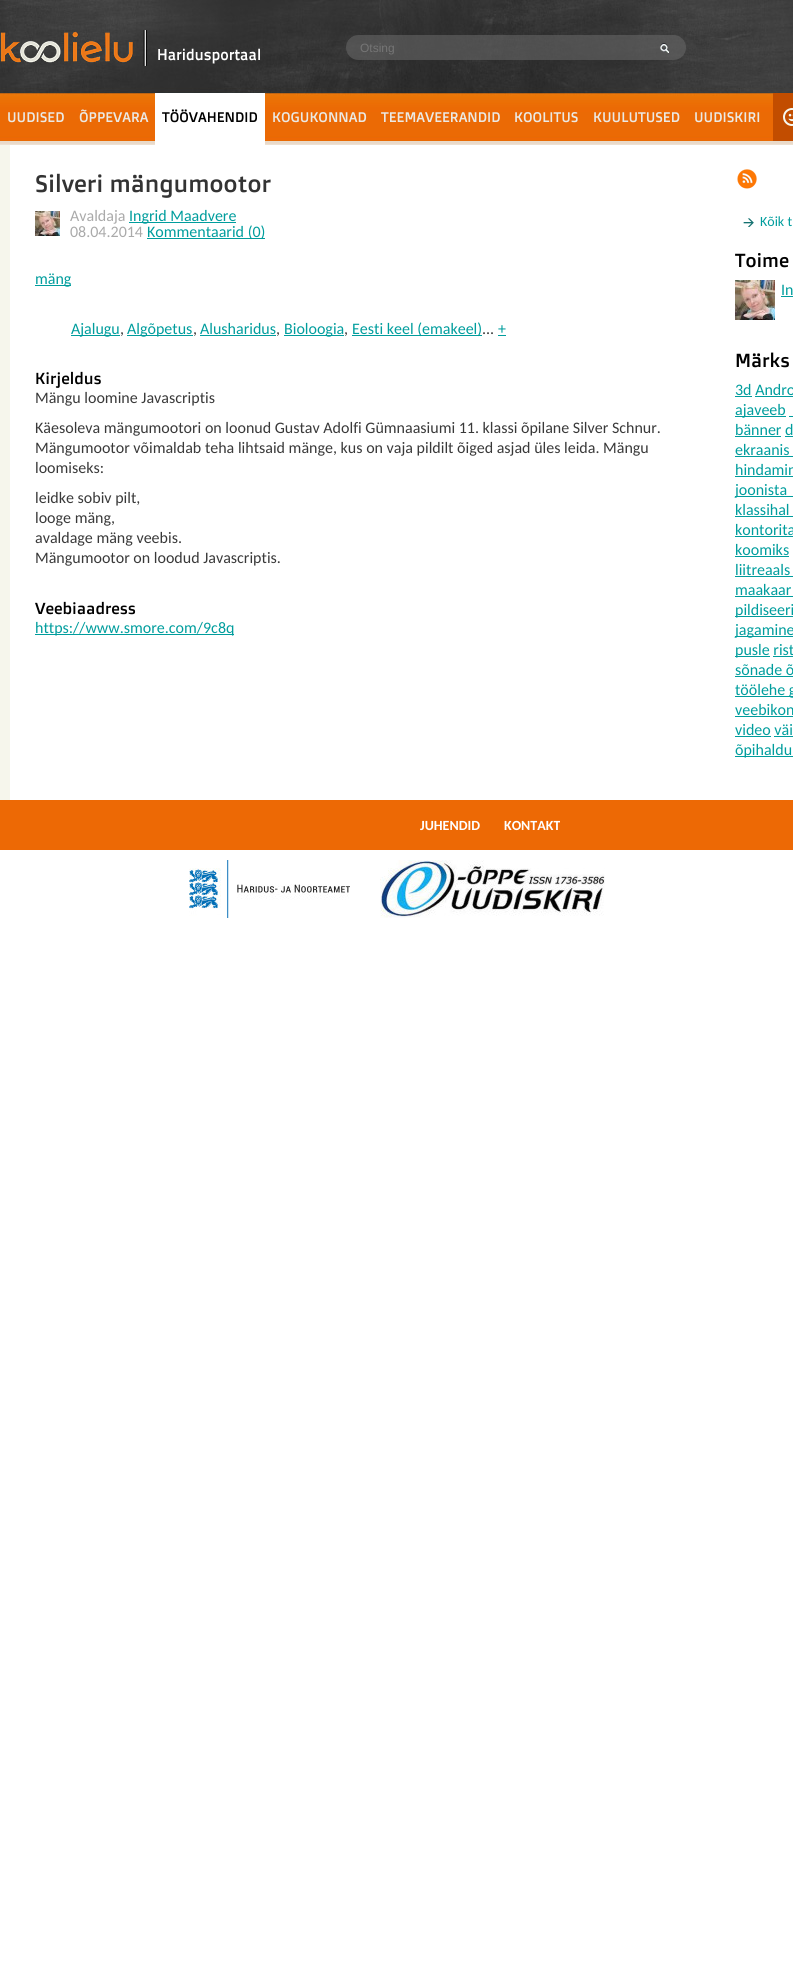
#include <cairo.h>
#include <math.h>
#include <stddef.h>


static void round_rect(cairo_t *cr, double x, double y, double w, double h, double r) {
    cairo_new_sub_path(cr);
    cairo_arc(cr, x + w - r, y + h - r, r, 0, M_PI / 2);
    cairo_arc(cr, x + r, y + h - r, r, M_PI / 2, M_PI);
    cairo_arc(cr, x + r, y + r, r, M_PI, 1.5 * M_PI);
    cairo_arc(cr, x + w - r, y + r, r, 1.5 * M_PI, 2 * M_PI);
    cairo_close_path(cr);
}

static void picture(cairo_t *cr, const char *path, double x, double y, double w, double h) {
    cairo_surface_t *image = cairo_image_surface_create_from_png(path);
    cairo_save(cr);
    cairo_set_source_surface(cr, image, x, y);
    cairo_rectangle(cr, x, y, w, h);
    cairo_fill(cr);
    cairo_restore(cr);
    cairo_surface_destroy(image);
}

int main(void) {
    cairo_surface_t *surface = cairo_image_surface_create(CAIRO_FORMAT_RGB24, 793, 1965);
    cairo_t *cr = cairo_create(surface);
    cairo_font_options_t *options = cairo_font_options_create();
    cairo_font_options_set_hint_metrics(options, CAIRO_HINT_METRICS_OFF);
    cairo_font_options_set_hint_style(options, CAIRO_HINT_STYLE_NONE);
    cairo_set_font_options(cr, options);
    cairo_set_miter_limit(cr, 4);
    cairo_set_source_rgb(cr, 1, 1, 1);
    cairo_paint(cr);
    picture(cr, "img1.png", 0, 0, 793, 145);
    picture(cr, "img2.png", 0, 30, 260, 36);
    cairo_set_source_rgba(cr, 0.4, 0.4, 0.4, 0.6);
    round_rect(cr, 346, 35, 340, 25, 12.5);
    cairo_fill(cr);
    picture(cr, "img3.png", 660, 43, 9, 10);
    cairo_select_font_face(cr, "Liberation Sans", CAIRO_FONT_SLANT_NORMAL, CAIRO_FONT_WEIGHT_NORMAL);
    cairo_set_font_size(cr, 12);
    cairo_set_source_rgb(cr, 0.459, 0.459, 0.459);
    cairo_move_to(cr, 360, 52);
    cairo_show_text(cr, "Otsing");
    cairo_select_font_face(cr, "Doppio One", CAIRO_FONT_SLANT_NORMAL, CAIRO_FONT_WEIGHT_NORMAL);
    cairo_set_font_size(cr, 14);
    cairo_set_source_rgb(cr, 0.918, 0.914, 0.894);
    cairo_move_to(cr, 7, 122);
    cairo_show_text(cr, "UUDISED");
    cairo_move_to(cr, 79, 122);
    cairo_show_text(cr, "ÕPPEVARA");
    cairo_set_source_rgb(cr, 1, 1, 1);
    cairo_rectangle(cr, 155, 93, 110, 52);
    cairo_fill(cr);
    cairo_set_source_rgb(cr, 0, 0, 0);
    cairo_move_to(cr, 162, 122);
    cairo_show_text(cr, "TÖÖVAHENDID");
    cairo_set_source_rgb(cr, 0.918, 0.914, 0.894);
    cairo_move_to(cr, 272, 122);
    cairo_show_text(cr, "KOGUKONNAD");
    cairo_move_to(cr, 381, 122);
    cairo_show_text(cr, "TEEMAVEERANDID");
    cairo_move_to(cr, 514, 122);
    cairo_show_text(cr, "KOOLITUS");
    cairo_move_to(cr, 593, 122);
    cairo_show_text(cr, "KUULUTUSED");
    cairo_move_to(cr, 694, 122);
    cairo_show_text(cr, "UUDISKIRI");
    cairo_set_source_rgb(cr, 0.761, 0.302, 0);
    cairo_rectangle(cr, 773, 93, 20, 48);
    cairo_fill(cr);
    picture(cr, "img4.png", 783, 108, 10, 18);
    cairo_set_source_rgb(cr, 0.961, 0.961, 0.925);
    cairo_rectangle(cr, 0, 145, 10, 655);
    cairo_fill(cr);
    cairo_set_font_size(cr, 24);
    cairo_set_source_rgb(cr, 0.2, 0.2, 0.2);
    cairo_move_to(cr, 35, 192);
    cairo_show_text(cr, "Silveri mängumootor");
    picture(cr, "img5.png", 35, 211, 25, 25);
    cairo_select_font_face(cr, "Carlito", CAIRO_FONT_SLANT_NORMAL, CAIRO_FONT_WEIGHT_NORMAL);
    cairo_set_font_size(cr, 16);
    cairo_set_source_rgb(cr, 0.667, 0.667, 0.667);
    cairo_move_to(cr, 70, 221);
    cairo_show_text(cr, "Avaldaja");
    cairo_set_source_rgb(cr, 0, 0.616, 0.616);
    cairo_rectangle(cr, 129, 222, 107, 1);
    cairo_fill(cr);
    cairo_move_to(cr, 129, 221);
    cairo_show_text(cr, "Ingrid Maadvere");
    cairo_set_source_rgb(cr, 0.667, 0.667, 0.667);
    cairo_move_to(cr, 70, 237);
    cairo_show_text(cr, "08.04.2014");
    cairo_set_source_rgb(cr, 0, 0.616, 0.616);
    cairo_rectangle(cr, 147, 238, 118, 1);
    cairo_fill(cr);
    cairo_move_to(cr, 147, 237);
    cairo_show_text(cr, "Kommentaarid (0)");
    cairo_rectangle(cr, 35, 285, 36, 1);
    cairo_fill(cr);
    cairo_move_to(cr, 35, 284);
    cairo_show_text(cr, "mäng");
    cairo_rectangle(cr, 71, 335, 49, 1);
    cairo_fill(cr);
    cairo_move_to(cr, 71, 334);
    cairo_show_text(cr, "Ajalugu");
    cairo_rectangle(cr, 127, 335, 66, 1);
    cairo_fill(cr);
    cairo_move_to(cr, 127, 334);
    cairo_show_text(cr, "Algõpetus");
    cairo_move_to(cr, 200, 334);
    cairo_show_text(cr, "Alusharidus");
    cairo_rectangle(cr, 284, 335, 60, 1);
    cairo_fill(cr);
    cairo_move_to(cr, 284, 334);
    cairo_show_text(cr, "Bioloogia");
    cairo_rectangle(cr, 352, 335, 130, 1);
    cairo_fill(cr);
    cairo_move_to(cr, 352, 334);
    cairo_show_text(cr, "Eesti keel (emakeel)");
    cairo_move_to(cr, 498, 334);
    cairo_show_text(cr, "+");
    cairo_set_source_rgb(cr, 0.224, 0.224, 0.224);
    cairo_move_to(cr, 120, 334);
    cairo_show_text(cr, ",");
    cairo_move_to(cr, 193, 334);
    cairo_show_text(cr, ",");
    cairo_move_to(cr, 276, 334);
    cairo_show_text(cr, ",");
    cairo_set_source_rgb(cr, 0, 0.616, 0.616);
    cairo_rectangle(cr, 200, 335, 76, 1);
    cairo_fill(cr);
    cairo_set_source_rgb(cr, 0.224, 0.224, 0.224);
    cairo_move_to(cr, 344, 334);
    cairo_show_text(cr, ",");
    cairo_move_to(cr, 482, 334);
    cairo_show_text(cr, "...");
    cairo_set_source_rgb(cr, 0, 0.616, 0.616);
    cairo_rectangle(cr, 498, 335, 8, 1);
    cairo_fill(cr);
    cairo_select_font_face(cr, "Doppio One", CAIRO_FONT_SLANT_NORMAL, CAIRO_FONT_WEIGHT_NORMAL);
    cairo_set_source_rgb(cr, 0, 0, 0);
    cairo_move_to(cr, 35, 384);
    cairo_show_text(cr, "Kirjeldus");
    cairo_select_font_face(cr, "Carlito", CAIRO_FONT_SLANT_NORMAL, CAIRO_FONT_WEIGHT_NORMAL);
    cairo_set_source_rgb(cr, 0.224, 0.224, 0.224);
    cairo_move_to(cr, 35, 403);
    cairo_show_text(cr, "Mängu loomine Javascriptis");
    cairo_move_to(cr, 35, 433);
    cairo_show_text(cr, "Käesoleva mängumootori on loonud Gustav Adolfi Gümnaasiumi 11. klassi õpilane Silver Schnur.");
    cairo_move_to(cr, 35, 453);
    cairo_show_text(cr, "Mängumootor võimaldab teha lihtsaid mänge, kus on vaja pildilt õiged asjad üles leida. Mängu");
    cairo_move_to(cr, 35, 473);
    cairo_show_text(cr, "loomiseks:");
    cairo_move_to(cr, 35, 503);
    cairo_show_text(cr, "leidke sobiv pilt,");
    cairo_move_to(cr, 35, 523);
    cairo_show_text(cr, "looge mäng,");
    cairo_move_to(cr, 35, 543);
    cairo_show_text(cr, "avaldage mäng veebis.");
    cairo_move_to(cr, 35, 563);
    cairo_show_text(cr, "Mängumootor on loodud Javascriptis.");
    cairo_select_font_face(cr, "Doppio One", CAIRO_FONT_SLANT_NORMAL, CAIRO_FONT_WEIGHT_NORMAL);
    cairo_set_source_rgb(cr, 0, 0, 0);
    cairo_move_to(cr, 35, 614);
    cairo_show_text(cr, "Veebiaadress");
    cairo_set_source_rgb(cr, 0, 0.616, 0.616);
    cairo_rectangle(cr, 35, 634, 199, 1);
    cairo_fill(cr);
    cairo_select_font_face(cr, "Carlito", CAIRO_FONT_SLANT_NORMAL, CAIRO_FONT_WEIGHT_NORMAL);
    cairo_move_to(cr, 35, 633);
    cairo_show_text(cr, "https://www.smore.com/9c8q");
    picture(cr, "img6.png", 737, 169, 20, 20);
    picture(cr, "img7.png", 743, 218, 11, 9);
    cairo_set_font_size(cr, 14);
    cairo_move_to(cr, 760, 226);
    cairo_show_text(cr, "Kõik t");
    cairo_select_font_face(cr, "Doppio One", CAIRO_FONT_SLANT_NORMAL, CAIRO_FONT_WEIGHT_NORMAL);
    cairo_set_font_size(cr, 19);
    cairo_set_source_rgb(cr, 0, 0, 0);
    cairo_move_to(cr, 735, 267);
    cairo_show_text(cr, "Toime");
    picture(cr, "img8.png", 735, 280, 40, 40);
    cairo_select_font_face(cr, "Carlito", CAIRO_FONT_SLANT_NORMAL, CAIRO_FONT_WEIGHT_NORMAL);
    cairo_set_font_size(cr, 16);
    cairo_set_source_rgb(cr, 0, 0.616, 0.616);
    cairo_move_to(cr, 781, 295);
    cairo_show_text(cr, "In");
    cairo_rectangle(cr, 781, 296, 12, 1);
    cairo_fill(cr);
    cairo_select_font_face(cr, "Doppio One", CAIRO_FONT_SLANT_NORMAL, CAIRO_FONT_WEIGHT_NORMAL);
    cairo_set_font_size(cr, 19);
    cairo_set_source_rgb(cr, 0, 0, 0);
    cairo_move_to(cr, 735, 367);
    cairo_show_text(cr, "Märks");
    cairo_select_font_face(cr, "Carlito", CAIRO_FONT_SLANT_NORMAL, CAIRO_FONT_WEIGHT_NORMAL);
    cairo_set_font_size(cr, 16);
    cairo_set_source_rgb(cr, 0, 0.616, 0.616);
    cairo_move_to(cr, 735, 395);
    cairo_show_text(cr, "3d Andro");
    cairo_rectangle(cr, 735, 396, 17, 1);
    cairo_fill(cr);
    cairo_rectangle(cr, 755, 396, 38, 1);
    cairo_fill(cr);
    cairo_rectangle(cr, 735, 416, 51, 1);
    cairo_fill(cr);
    cairo_move_to(cr, 735, 415);
    cairo_show_text(cr, "ajaveeb");
    cairo_rectangle(cr, 789, 416, 4, 1);
    cairo_fill(cr);
    cairo_move_to(cr, 735, 435);
    cairo_show_text(cr, "bänner d");
    cairo_rectangle(cr, 735, 436, 46, 1);
    cairo_fill(cr);
    cairo_rectangle(cr, 785, 436, 8, 1);
    cairo_fill(cr);
    cairo_move_to(cr, 735, 455);
    cairo_show_text(cr, "ekraanis");
    cairo_rectangle(cr, 735, 456, 58, 1);
    cairo_fill(cr);
    cairo_move_to(cr, 735, 475);
    cairo_show_text(cr, "hindamin");
    cairo_rectangle(cr, 735, 476, 58, 1);
    cairo_fill(cr);
    cairo_rectangle(cr, 735, 496, 58, 1);
    cairo_fill(cr);
    cairo_move_to(cr, 735, 495);
    cairo_show_text(cr, "joonista");
    cairo_move_to(cr, 735, 515);
    cairo_show_text(cr, "klassihal");
    cairo_rectangle(cr, 735, 516, 58, 1);
    cairo_fill(cr);
    cairo_move_to(cr, 735, 535);
    cairo_show_text(cr, "kontorita");
    cairo_rectangle(cr, 735, 536, 58, 1);
    cairo_fill(cr);
    cairo_move_to(cr, 735, 555);
    cairo_show_text(cr, "koomiks");
    cairo_rectangle(cr, 735, 556, 54, 1);
    cairo_fill(cr);
    cairo_move_to(cr, 735, 575);
    cairo_show_text(cr, "liitreaals");
    cairo_rectangle(cr, 735, 576, 58, 1);
    cairo_fill(cr);
    cairo_move_to(cr, 735, 595);
    cairo_show_text(cr, "maakaar");
    cairo_rectangle(cr, 735, 596, 58, 1);
    cairo_fill(cr);
    cairo_rectangle(cr, 735, 616, 58, 1);
    cairo_fill(cr);
    cairo_move_to(cr, 735, 615);
    cairo_show_text(cr, "pildiseeri");
    cairo_rectangle(cr, 735, 636, 58, 1);
    cairo_fill(cr);
    cairo_move_to(cr, 735, 635);
    cairo_show_text(cr, "jagamine");
    cairo_rectangle(cr, 735, 656, 35, 1);
    cairo_fill(cr);
    cairo_move_to(cr, 735, 655);
    cairo_show_text(cr, "pusle rist");
    cairo_rectangle(cr, 773, 656, 20, 1);
    cairo_fill(cr);
    cairo_move_to(cr, 735, 675);
    cairo_show_text(cr, "sõnade õ");
    cairo_rectangle(cr, 735, 676, 58, 1);
    cairo_fill(cr);
    cairo_rectangle(cr, 735, 696, 58, 1);
    cairo_fill(cr);
    cairo_move_to(cr, 735, 695);
    cairo_show_text(cr, "töölehe g");
    cairo_move_to(cr, 735, 715);
    cairo_show_text(cr, "veebikon");
    cairo_rectangle(cr, 735, 716, 58, 1);
    cairo_fill(cr);
    cairo_move_to(cr, 735, 735);
    cairo_show_text(cr, "video väi");
    cairo_rectangle(cr, 735, 736, 36, 1);
    cairo_fill(cr);
    cairo_rectangle(cr, 774, 736, 19, 1);
    cairo_fill(cr);
    cairo_rectangle(cr, 735, 756, 58, 1);
    cairo_fill(cr);
    cairo_move_to(cr, 735, 755);
    cairo_show_text(cr, "õpihaldu");
    cairo_set_source_rgb(cr, 0.929, 0.412, 0.02);
    cairo_rectangle(cr, 0, 800, 793, 50);
    cairo_fill(cr);
    cairo_select_font_face(cr, "Carlito", CAIRO_FONT_SLANT_NORMAL, CAIRO_FONT_WEIGHT_BOLD);
    cairo_set_font_size(cr, 14);
    cairo_set_source_rgb(cr, 1, 1, 1);
    cairo_move_to(cr, 420, 830);
    cairo_show_text(cr, "JUHENDID");
    cairo_move_to(cr, 504, 830);
    cairo_show_text(cr, "KONTAKT");
    picture(cr, "img9.png", 189, 860, 161, 58);
    picture(cr, "img10.png", 380, 860, 225, 58);
    cairo_surface_write_to_png(surface, "page.png");
    cairo_font_options_destroy(options);
    cairo_destroy(cr);
    cairo_surface_destroy(surface);
    return 0;
}
